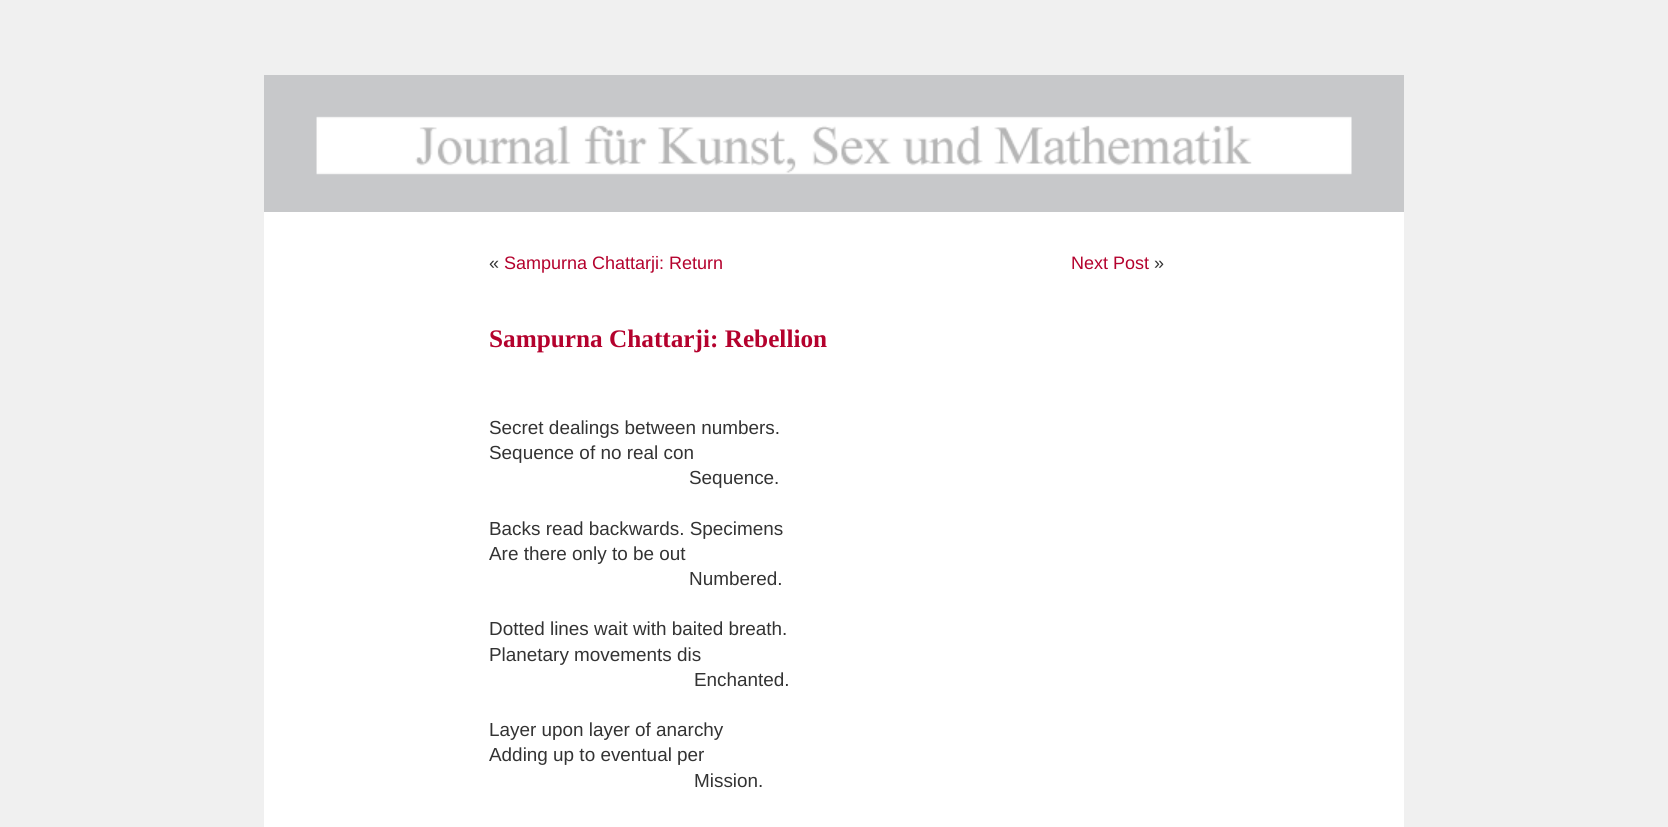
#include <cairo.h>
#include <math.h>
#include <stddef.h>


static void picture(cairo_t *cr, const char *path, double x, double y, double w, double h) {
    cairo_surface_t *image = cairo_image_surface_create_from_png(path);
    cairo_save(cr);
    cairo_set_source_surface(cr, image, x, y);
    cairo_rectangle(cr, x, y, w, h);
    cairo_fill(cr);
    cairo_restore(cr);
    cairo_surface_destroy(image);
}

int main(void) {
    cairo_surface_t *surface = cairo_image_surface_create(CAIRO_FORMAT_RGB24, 1668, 827);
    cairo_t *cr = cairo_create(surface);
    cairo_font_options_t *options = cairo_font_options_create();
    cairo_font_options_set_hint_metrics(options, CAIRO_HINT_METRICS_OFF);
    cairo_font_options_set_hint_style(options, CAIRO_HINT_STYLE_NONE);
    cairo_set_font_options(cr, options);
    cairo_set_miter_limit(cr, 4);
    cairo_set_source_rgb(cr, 0.941, 0.941, 0.941);
    cairo_paint(cr);
    cairo_set_source_rgb(cr, 1, 1, 1);
    cairo_rectangle(cr, 264, 212, 1140, 615);
    cairo_fill(cr);
    cairo_set_source_rgb(cr, 0.78, 0.784, 0.792);
    cairo_rectangle(cr, 264, 75, 1140, 137);
    cairo_fill(cr);
    picture(cr, "img1.png", 316, 116, 1036, 59);
    cairo_select_font_face(cr, "Liberation Sans", CAIRO_FONT_SLANT_NORMAL, CAIRO_FONT_WEIGHT_NORMAL);
    cairo_set_font_size(cr, 18);
    cairo_set_source_rgb(cr, 0.2, 0.2, 0.2);
    cairo_move_to(cr, 489, 269);
    cairo_show_text(cr, "«");
    cairo_set_source_rgb(cr, 0.706, 0.004, 0.176);
    cairo_move_to(cr, 504, 269);
    cairo_show_text(cr, "Sampurna Chattarji: Return");
    cairo_move_to(cr, 1071, 269);
    cairo_show_text(cr, "Next Post");
    cairo_set_source_rgb(cr, 0.2, 0.2, 0.2);
    cairo_move_to(cr, 1154, 269);
    cairo_show_text(cr, "»");
    cairo_select_font_face(cr, "Liberation Serif", CAIRO_FONT_SLANT_NORMAL, CAIRO_FONT_WEIGHT_BOLD);
    cairo_set_font_size(cr, 25.25);
    cairo_set_source_rgb(cr, 0.706, 0.004, 0.176);
    cairo_move_to(cr, 489, 347);
    cairo_show_text(cr, "Sampurna Chattarji: Rebellion");
    cairo_select_font_face(cr, "Liberation Sans", CAIRO_FONT_SLANT_NORMAL, CAIRO_FONT_WEIGHT_NORMAL);
    cairo_set_font_size(cr, 18.9);
    cairo_set_source_rgb(cr, 0.2, 0.2, 0.2);
    cairo_move_to(cr, 489, 434);
    cairo_show_text(cr, "Secret dealings between numbers.");
    cairo_move_to(cr, 489, 459);
    cairo_show_text(cr, "Sequence of no real con");
    cairo_move_to(cr, 689, 484);
    cairo_show_text(cr, "Sequence.");
    cairo_move_to(cr, 489, 535);
    cairo_show_text(cr, "Backs read backwards. Specimens");
    cairo_move_to(cr, 489, 560);
    cairo_show_text(cr, "Are there only to be out");
    cairo_move_to(cr, 689, 585);
    cairo_show_text(cr, "Numbered.");
    cairo_move_to(cr, 489, 635);
    cairo_show_text(cr, "Dotted lines wait with baited breath.");
    cairo_move_to(cr, 489, 661);
    cairo_show_text(cr, "Planetary movements dis");
    cairo_move_to(cr, 694, 686);
    cairo_show_text(cr, "Enchanted.");
    cairo_move_to(cr, 489, 736);
    cairo_show_text(cr, "Layer upon layer of anarchy");
    cairo_move_to(cr, 489, 761);
    cairo_show_text(cr, "Adding up to eventual per");
    cairo_move_to(cr, 694, 787);
    cairo_show_text(cr, "Mission.");
    cairo_surface_write_to_png(surface, "page.png");
    cairo_font_options_destroy(options);
    cairo_destroy(cr);
    cairo_surface_destroy(surface);
    return 0;
}
